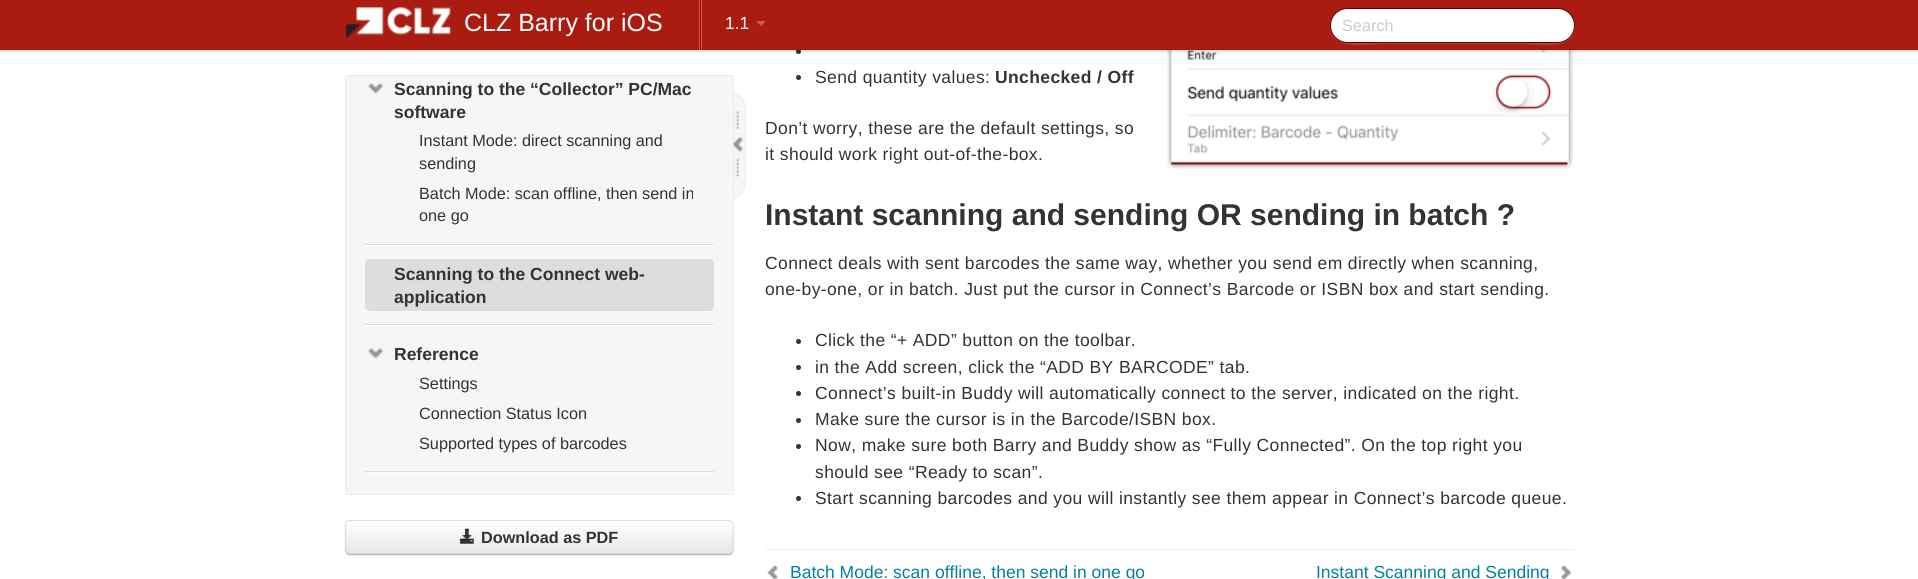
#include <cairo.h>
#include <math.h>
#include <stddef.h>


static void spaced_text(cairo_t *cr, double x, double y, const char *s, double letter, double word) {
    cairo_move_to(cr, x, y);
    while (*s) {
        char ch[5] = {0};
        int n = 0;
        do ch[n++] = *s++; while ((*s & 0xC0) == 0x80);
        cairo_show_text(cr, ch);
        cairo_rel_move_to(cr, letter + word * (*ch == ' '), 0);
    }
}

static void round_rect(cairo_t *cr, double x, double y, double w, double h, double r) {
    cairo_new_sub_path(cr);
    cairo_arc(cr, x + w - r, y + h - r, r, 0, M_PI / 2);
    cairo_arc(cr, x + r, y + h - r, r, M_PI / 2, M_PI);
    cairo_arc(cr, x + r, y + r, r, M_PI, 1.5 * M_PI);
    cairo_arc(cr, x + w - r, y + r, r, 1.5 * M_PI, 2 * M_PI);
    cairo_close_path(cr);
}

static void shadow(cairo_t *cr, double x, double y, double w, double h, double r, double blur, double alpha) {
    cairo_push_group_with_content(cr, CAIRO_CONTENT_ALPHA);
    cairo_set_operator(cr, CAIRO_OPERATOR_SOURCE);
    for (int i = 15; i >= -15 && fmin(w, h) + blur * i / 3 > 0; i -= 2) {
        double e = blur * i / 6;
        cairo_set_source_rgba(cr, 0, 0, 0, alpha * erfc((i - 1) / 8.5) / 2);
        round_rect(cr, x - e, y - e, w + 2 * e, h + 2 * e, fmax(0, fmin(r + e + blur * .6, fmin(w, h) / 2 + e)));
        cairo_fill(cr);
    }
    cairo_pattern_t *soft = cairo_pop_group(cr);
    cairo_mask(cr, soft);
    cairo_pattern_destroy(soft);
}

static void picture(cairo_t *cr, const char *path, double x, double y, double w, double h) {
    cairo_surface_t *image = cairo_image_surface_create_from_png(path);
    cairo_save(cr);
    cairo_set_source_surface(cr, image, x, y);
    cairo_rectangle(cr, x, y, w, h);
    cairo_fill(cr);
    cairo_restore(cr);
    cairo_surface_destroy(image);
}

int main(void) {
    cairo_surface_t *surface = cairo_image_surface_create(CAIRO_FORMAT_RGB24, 1918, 579);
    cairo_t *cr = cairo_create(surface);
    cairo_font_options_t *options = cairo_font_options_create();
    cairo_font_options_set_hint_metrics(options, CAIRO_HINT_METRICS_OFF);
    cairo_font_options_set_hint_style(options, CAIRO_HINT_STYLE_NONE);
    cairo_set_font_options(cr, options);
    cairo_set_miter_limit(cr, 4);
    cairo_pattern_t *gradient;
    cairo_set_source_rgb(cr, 1, 1, 1);
    cairo_paint(cr);
    cairo_set_source_rgb(cr, 0.2, 0.2, 0.2);
    cairo_arc(cr, 798.5, 51.5, 2.5, 0, 2 * M_PI);
    cairo_fill(cr);
    picture(cr, "img7.png", 1167, 50, 406, 119);
    cairo_set_source_rgb(cr, 0, 0, 0);
    shadow(cr, 0, 1, 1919, 50, 0, 2, 0.25);
    cairo_set_source_rgb(cr, 0.667, 0.11, 0.071);
    cairo_rectangle(cr, 0, 0, 1918, 49);
    cairo_fill(cr);
    cairo_set_source_rgb(cr, 0.6, 0.098, 0.063);
    cairo_rectangle(cr, 0, 49, 1918, 1);
    cairo_fill(cr);
    picture(cr, "img1.png", 346, 7, 105, 32);
    cairo_select_font_face(cr, "Liberation Sans", CAIRO_FONT_SLANT_NORMAL, CAIRO_FONT_WEIGHT_NORMAL);
    cairo_set_font_size(cr, 25);
    cairo_set_source_rgb(cr, 1, 1, 1);
    cairo_move_to(cr, 464, 31);
    cairo_show_text(cr, "CLZ Barry for iOS");
    cairo_set_source_rgb(cr, 0.867, 0.31, 0.271);
    cairo_rectangle(cr, 699, 0, 3, 50);
    cairo_fill(cr);
    cairo_set_source_rgb(cr, 0.6, 0.043, 0.004);
    cairo_rectangle(cr, 700, 0, 1, 50);
    cairo_fill(cr);
    cairo_set_font_size(cr, 17.5);
    cairo_set_source_rgb(cr, 1, 1, 1);
    cairo_move_to(cr, 725, 29);
    cairo_show_text(cr, "1.1");
    cairo_set_source_rgb(cr, 0.769, 0.376, 0.349);
    cairo_new_path(cr);
    cairo_move_to(cr, 756, 21);
    cairo_line_to(cr, 766, 21);
    cairo_line_to(cr, 761, 26);
    cairo_close_path(cr);
    cairo_fill(cr);
    cairo_set_source_rgb(cr, 0.718, 0.243, 0.212);
    cairo_new_path(cr);
    cairo_move_to(cr, 1330, 26);
    cairo_curve_to(cr, 1329, 52, 1370, 44, 1382, 44);
    cairo_line_to(cr, 1522, 44);
    cairo_curve_to(cr, 1535, 44, 1576, 52, 1575, 26);
    cairo_curve_to(cr, 1575, 35, 1567, 42, 1558, 42);
    cairo_line_to(cr, 1348, 42);
    cairo_curve_to(cr, 1338, 42, 1330, 35, 1330, 26);
    cairo_close_path(cr);
    cairo_fill(cr);
    cairo_set_source_rgb(cr, 1, 1, 1);
    round_rect(cr, 1330.5, 8.5, 244, 34, 17);
    cairo_fill_preserve(cr);
    cairo_set_source_rgb(cr, 0.333, 0.027, 0);
    cairo_set_line_width(cr, 1);
    cairo_stroke(cr);
    cairo_set_font_size(cr, 16.25);
    cairo_set_source_rgb(cr, 0.8, 0.8, 0.8);
    cairo_move_to(cr, 1342, 31);
    cairo_show_text(cr, "Search");
    cairo_set_source_rgb(cr, 0.961, 0.961, 0.961);
    round_rect(cr, 345, 75, 389, 420, 5);
    cairo_fill(cr);
    cairo_rectangle(cr, 345.5, 75.5, 388, 419);
    cairo_set_source_rgba(cr, 0, 0, 0, 0.05);
    cairo_stroke(cr);
    picture(cr, "img2.png", 368, 83, 15, 11);
    cairo_select_font_face(cr, "Liberation Sans", CAIRO_FONT_SLANT_NORMAL, CAIRO_FONT_WEIGHT_BOLD);
    cairo_set_font_size(cr, 17.5);
    cairo_set_source_rgb(cr, 0.2, 0.2, 0.2);
    cairo_move_to(cr, 394, 95);
    cairo_show_text(cr, "Scanning to the “Collector” PC/Mac");
    cairo_move_to(cr, 394, 118);
    cairo_show_text(cr, "software");
    cairo_select_font_face(cr, "Liberation Sans", CAIRO_FONT_SLANT_NORMAL, CAIRO_FONT_WEIGHT_NORMAL);
    cairo_set_font_size(cr, 16.25);
    cairo_move_to(cr, 419, 146);
    cairo_show_text(cr, "Instant Mode: direct scanning and");
    cairo_move_to(cr, 419, 169);
    cairo_show_text(cr, "sending");
    cairo_move_to(cr, 419, 199);
    cairo_show_text(cr, "Batch Mode: scan offline, then send in");
    cairo_move_to(cr, 419, 221);
    cairo_show_text(cr, "one go");
    cairo_set_source_rgb(cr, 0.867, 0.867, 0.867);
    cairo_rectangle(cr, 365, 244, 349, 1);
    cairo_fill(cr);
    cairo_set_source_rgb(cr, 1, 1, 1);
    cairo_rectangle(cr, 365, 245, 349, 1);
    cairo_fill(cr);
    cairo_set_source_rgb(cr, 0.867, 0.867, 0.867);
    round_rect(cr, 365, 259, 349, 52, 5);
    cairo_fill(cr);
    cairo_select_font_face(cr, "Liberation Sans", CAIRO_FONT_SLANT_NORMAL, CAIRO_FONT_WEIGHT_BOLD);
    cairo_set_font_size(cr, 17.5);
    cairo_set_source_rgb(cr, 0.2, 0.2, 0.2);
    cairo_move_to(cr, 394, 280);
    cairo_show_text(cr, "Scanning to the Connect web-");
    cairo_move_to(cr, 394, 303);
    cairo_show_text(cr, "application");
    cairo_set_source_rgb(cr, 0.867, 0.867, 0.867);
    cairo_rectangle(cr, 365, 324, 349, 1);
    cairo_fill(cr);
    cairo_set_source_rgb(cr, 1, 1, 1);
    cairo_rectangle(cr, 365, 325, 349, 1);
    cairo_fill(cr);
    picture(cr, "img2.png", 368, 348, 15, 11);
    cairo_set_source_rgb(cr, 0.2, 0.2, 0.2);
    cairo_move_to(cr, 394, 360);
    cairo_show_text(cr, "Reference");
    cairo_select_font_face(cr, "Liberation Sans", CAIRO_FONT_SLANT_NORMAL, CAIRO_FONT_WEIGHT_NORMAL);
    cairo_set_font_size(cr, 16.25);
    cairo_move_to(cr, 419, 389);
    cairo_show_text(cr, "Settings");
    cairo_move_to(cr, 419, 419);
    cairo_show_text(cr, "Connection Status Icon");
    cairo_move_to(cr, 419, 449);
    cairo_show_text(cr, "Supported types of barcodes");
    cairo_set_source_rgb(cr, 0.867, 0.867, 0.867);
    cairo_rectangle(cr, 365, 471, 349, 1);
    cairo_fill(cr);
    cairo_set_source_rgb(cr, 1, 1, 1);
    cairo_rectangle(cr, 365, 473, 349, 1);
    cairo_fill(cr);
    cairo_set_source_rgb(cr, 0.961, 0.961, 0.961);
    cairo_new_path(cr);
    cairo_move_to(cr, 734, 91);
    cairo_line_to(cr, 728, 91);
    cairo_curve_to(cr, 738, 91, 746, 99, 746, 109);
    cairo_line_to(cr, 746, 182);
    cairo_curve_to(cr, 746, 192, 738, 200, 728, 200);
    cairo_line_to(cr, 734, 200);
    cairo_close_path(cr);
    cairo_fill(cr);
    cairo_save(cr);
    cairo_rectangle(cr, 734, 79, 25, 137);
    cairo_clip(cr);
    round_rect(cr, 710.5, 91.5, 35, 108, 17.5);
    cairo_set_source_rgb(cr, 0.922, 0.922, 0.922);
    cairo_stroke(cr);
    cairo_restore(cr);
    picture(cr, "img3.png", 735, 111, 4, 19);
    picture(cr, "img4.png", 733, 137, 10, 15);
    picture(cr, "img5.png", 735, 158, 4, 19);
    cairo_set_source_rgb(cr, 0, 0, 0);
    shadow(cr, 345, 521, 389, 35, 5, 1, 0.05);
    cairo_set_source_rgb(cr, 0.961, 0.961, 0.961);
    round_rect(cr, 345, 520, 389, 35, 5);
    cairo_fill(cr);
    cairo_save(cr);
    round_rect(cr, 345, 520, 389, 35, 5);
    cairo_clip(cr);
    gradient = cairo_pattern_create_linear(539, 521, 539, 554);
    cairo_pattern_add_color_stop_rgba(gradient, 0, 1, 1, 1, 1);
    cairo_pattern_add_color_stop_rgba(gradient, 1, 0.902, 0.902, 0.902, 1);
    cairo_set_source(cr, gradient);
    cairo_pattern_destroy(gradient);
    cairo_rectangle(cr, 345, 521, 389, 33);
    cairo_fill(cr);
    cairo_restore(cr);
    cairo_set_source_rgba(cr, 1, 1, 1, 0.2);
    cairo_new_path(cr);
    cairo_move_to(cr, 350, 522);
    cairo_line_to(cr, 729, 522);
    cairo_curve_to(cr, 734, 522, 732, 532, 732, 534);
    cairo_line_to(cr, 732, 553);
    cairo_line_to(cr, 733, 551);
    cairo_line_to(cr, 733, 523);
    cairo_curve_to(cr, 732, 522, 731, 521, 730, 521);
    cairo_line_to(cr, 350, 521);
    cairo_curve_to(cr, 347, 521, 346, 523, 346, 526);
    cairo_curve_to(cr, 346, 524, 348, 522, 350, 522);
    cairo_close_path(cr);
    cairo_fill(cr);
    cairo_new_path(cr);
    cairo_move_to(cr, 732, 553);
    cairo_curve_to(cr, 731, 554, 730, 554.5, 729, 554.5);
    cairo_line_to(cr, 350, 554.5);
    cairo_curve_to(cr, 349, 554.5, 347.5, 554, 347, 553);
    cairo_set_source_rgba(cr, 0, 0, 0, 0.25);
    cairo_set_line_width(cr, 1.2);
    cairo_stroke(cr);
    cairo_new_path(cr);
    cairo_move_to(cr, 347, 553);
    cairo_curve_to(cr, 346, 552.5, 345.5, 551, 345.5, 550);
    cairo_line_to(cr, 345.5, 525);
    cairo_curve_to(cr, 345.5, 524, 346, 522.5, 347, 522);
    cairo_curve_to(cr, 347.5, 521, 349, 520.5, 350, 520.5);
    cairo_line_to(cr, 729, 520.5);
    cairo_curve_to(cr, 730, 520.5, 731, 521, 732, 522);
    cairo_curve_to(cr, 732.5, 522.5, 733, 524, 733, 525);
    cairo_line_to(cr, 733, 550);
    cairo_curve_to(cr, 733, 551, 732.5, 552.5, 732, 553);
    cairo_set_source_rgba(cr, 0, 0, 0, 0.1);
    cairo_stroke(cr);
    picture(cr, "img6.png", 459, 528, 15, 17);
    cairo_select_font_face(cr, "Liberation Sans", CAIRO_FONT_SLANT_NORMAL, CAIRO_FONT_WEIGHT_BOLD);
    cairo_set_source_rgb(cr, 0.2, 0.2, 0.2);
    cairo_move_to(cr, 481, 543);
    cairo_show_text(cr, "Download as PDF");
    cairo_new_path(cr);
    cairo_arc(cr, 798.5, 77.5, 2.5, 0, 2 * M_PI);
    cairo_fill(cr);
    cairo_select_font_face(cr, "Liberation Sans", CAIRO_FONT_SLANT_NORMAL, CAIRO_FONT_WEIGHT_NORMAL);
    cairo_set_font_size(cr, 17.5);
    spaced_text(cr, 815, 83, "Send quantity values:", 0.38, 0);
    cairo_select_font_face(cr, "Liberation Sans", CAIRO_FONT_SLANT_NORMAL, CAIRO_FONT_WEIGHT_BOLD);
    spaced_text(cr, 995, 83, "Unchecked / Off", 0.38, 0);
    cairo_select_font_face(cr, "Liberation Sans", CAIRO_FONT_SLANT_NORMAL, CAIRO_FONT_WEIGHT_NORMAL);
    spaced_text(cr, 765, 134, "Don’t worry, these are the default settings, so", 0.38, 0);
    spaced_text(cr, 765, 160, "it should work right out-of-the-box.", 0.38, 0);
    cairo_select_font_face(cr, "Liberation Sans", CAIRO_FONT_SLANT_NORMAL, CAIRO_FONT_WEIGHT_BOLD);
    cairo_set_font_size(cr, 30);
    cairo_move_to(cr, 765, 225);
    cairo_show_text(cr, "Instant scanning and sending OR sending in batch ?");
    cairo_select_font_face(cr, "Liberation Sans", CAIRO_FONT_SLANT_NORMAL, CAIRO_FONT_WEIGHT_NORMAL);
    cairo_set_font_size(cr, 17.5);
    spaced_text(cr, 765, 269, "Connect deals with sent barcodes the same way, whether you send em directly when scanning,", 0.38, 0);
    spaced_text(cr, 765, 295, "one-by-one, or in batch. Just put the cursor in Connect’s Barcode or ISBN box and start sending.", 0.38, 0);
    cairo_new_path(cr);
    cairo_arc(cr, 798.5, 341.5, 2.5, 0, 2 * M_PI);
    cairo_fill(cr);
    spaced_text(cr, 815, 346, "Click the “+ ADD” button on the toolbar.", 0.38, 0);
    cairo_new_path(cr);
    cairo_arc(cr, 798.5, 367.5, 2.5, 0, 2 * M_PI);
    cairo_fill(cr);
    spaced_text(cr, 815, 373, "in the Add screen, click the “ADD BY BARCODE” tab.", 0.38, 0);
    cairo_new_path(cr);
    cairo_arc(cr, 798.5, 393.5, 2.5, 0, 2 * M_PI);
    cairo_fill(cr);
    spaced_text(cr, 815, 399, "Connect’s built-in Buddy will automatically connect to the server, indicated on the right.", 0.38, 0);
    cairo_new_path(cr);
    cairo_arc(cr, 798.5, 420.5, 2.5, 0, 2 * M_PI);
    cairo_fill(cr);
    spaced_text(cr, 815, 425, "Make sure the cursor is in the Barcode/ISBN box.", 0.38, 0);
    cairo_new_path(cr);
    cairo_arc(cr, 798.5, 446.5, 2.5, 0, 2 * M_PI);
    cairo_fill(cr);
    spaced_text(cr, 815, 451, "Now, make sure both Barry and Buddy show as “Fully Connected”. On the top right you", 0.38, 0);
    spaced_text(cr, 815, 478, "should see “Ready to scan”.", 0.38, 0);
    cairo_new_path(cr);
    cairo_arc(cr, 798.5, 498.5, 2.5, 0, 2 * M_PI);
    cairo_fill(cr);
    spaced_text(cr, 815, 504, "Start scanning barcodes and you will instantly see them appear in Connect’s barcode queue.", 0.38, 0);
    cairo_set_source_rgb(cr, 0.933, 0.933, 0.933);
    cairo_rectangle(cr, 765, 549, 809, 1);
    cairo_fill(cr);
    picture(cr, "img8.png", 767, 565, 11, 14);
    cairo_set_source_rgb(cr, 0, 0.502, 0.647);
    cairo_move_to(cr, 790, 578);
    cairo_show_text(cr, "Batch Mode: scan offline, then send in one go");
    cairo_move_to(cr, 1316, 578);
    cairo_show_text(cr, "Instant Scanning and Sending");
    picture(cr, "img9.png", 1561, 565, 11, 14);
    cairo_surface_write_to_png(surface, "page.png");
    cairo_font_options_destroy(options);
    cairo_destroy(cr);
    cairo_surface_destroy(surface);
    return 0;
}
